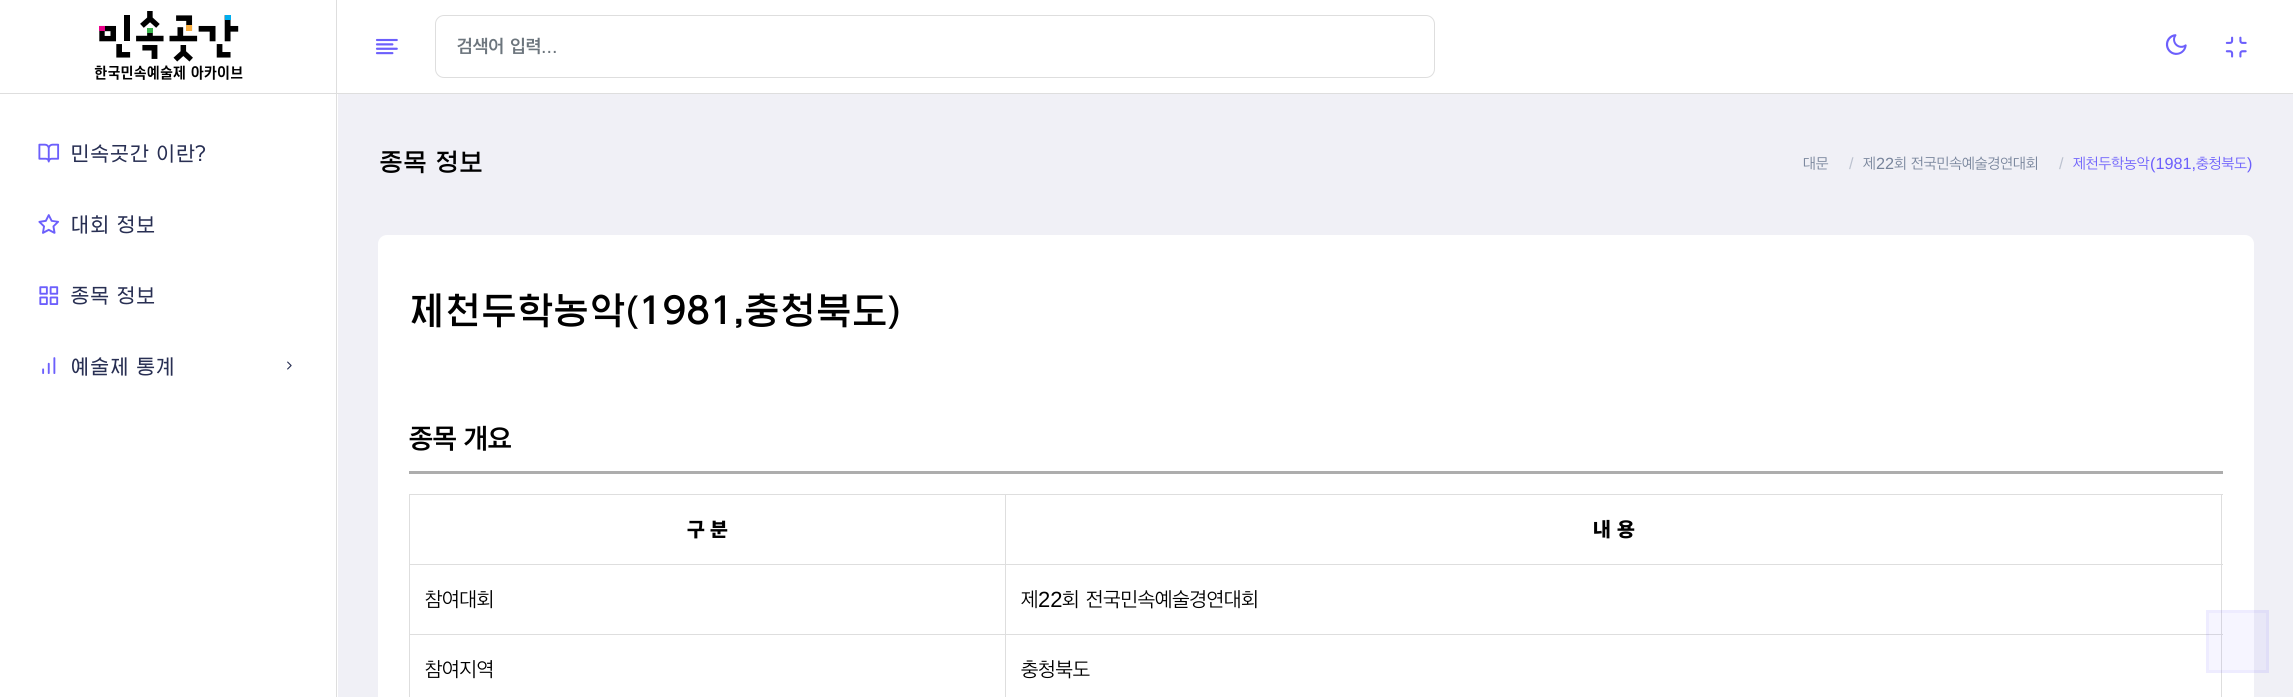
#include <cairo.h>
#include <math.h>
#include <stddef.h>


static void round_rect(cairo_t *cr, double x, double y, double w, double h, double r) {
    cairo_new_sub_path(cr);
    cairo_arc(cr, x + w - r, y + h - r, r, 0, M_PI / 2);
    cairo_arc(cr, x + r, y + h - r, r, M_PI / 2, M_PI);
    cairo_arc(cr, x + r, y + r, r, M_PI, 1.5 * M_PI);
    cairo_arc(cr, x + w - r, y + r, r, 1.5 * M_PI, 2 * M_PI);
    cairo_close_path(cr);
}

static void picture(cairo_t *cr, const char *path, double x, double y, double w, double h) {
    cairo_surface_t *image = cairo_image_surface_create_from_png(path);
    cairo_save(cr);
    cairo_set_source_surface(cr, image, x, y);
    cairo_rectangle(cr, x, y, w, h);
    cairo_fill(cr);
    cairo_restore(cr);
    cairo_surface_destroy(image);
}

int main(void) {
    cairo_surface_t *surface = cairo_image_surface_create(CAIRO_FORMAT_RGB24, 2293, 697);
    cairo_t *cr = cairo_create(surface);
    cairo_font_options_t *options = cairo_font_options_create();
    cairo_font_options_set_hint_metrics(options, CAIRO_HINT_METRICS_OFF);
    cairo_font_options_set_hint_style(options, CAIRO_HINT_STYLE_NONE);
    cairo_set_font_options(cr, options);
    cairo_set_miter_limit(cr, 4);
    cairo_set_source_rgb(cr, 0.941, 0.941, 0.961);
    cairo_paint(cr);
    cairo_set_source_rgb(cr, 1, 1, 1);
    cairo_rectangle(cr, 0, 0, 2293, 93);
    cairo_fill(cr);
    cairo_set_source_rgb(cr, 0.871, 0.871, 0.871);
    cairo_rectangle(cr, 338, 93, 1955, 1);
    cairo_fill(cr);
    picture(cr, "img1.png", 375, 38, 23, 17);
    round_rect(cr, 435.5, 15.5, 999, 62, 8.5);
    cairo_set_line_width(cr, 1);
    cairo_stroke(cr);
    cairo_select_font_face(cr, "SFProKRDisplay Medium", CAIRO_FONT_SLANT_NORMAL, CAIRO_FONT_WEIGHT_NORMAL);
    cairo_set_font_size(cr, 19.75);
    cairo_set_source_rgb(cr, 0.424, 0.459, 0.49);
    cairo_move_to(cr, 457, 53);
    cairo_show_text(cr, "검색어");
    cairo_move_to(cr, 510, 53);
    cairo_show_text(cr, "입력");
    cairo_select_font_face(cr, "Liberation Sans", CAIRO_FONT_SLANT_NORMAL, CAIRO_FONT_WEIGHT_NORMAL);
    cairo_move_to(cr, 541, 53);
    cairo_show_text(cr, "...");
    picture(cr, "img2.png", 2165, 34, 22, 21);
    picture(cr, "img3.png", 2225, 36, 22, 22);
    cairo_set_source_rgb(cr, 1, 1, 1);
    cairo_rectangle(cr, 0, 94, 338, 603);
    cairo_fill(cr);
    cairo_set_source_rgb(cr, 0.871, 0.871, 0.871);
    cairo_rectangle(cr, 336, 0, 1, 697);
    cairo_fill(cr);
    cairo_rectangle(cr, 0, 93, 338, 1);
    cairo_fill(cr);
    picture(cr, "img4.png", 94, 11, 149, 69);
    picture(cr, "img5.png", 38, 143, 22, 20);
    cairo_select_font_face(cr, "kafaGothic", CAIRO_FONT_SLANT_NORMAL, CAIRO_FONT_WEIGHT_NORMAL);
    cairo_set_source_rgb(cr, 0.157, 0.184, 0.325);
    cairo_move_to(cr, 70, 161);
    cairo_show_text(cr, "민속곳간 이란?");
    picture(cr, "img6.png", 38, 214, 22, 20);
    cairo_move_to(cr, 70, 232);
    cairo_show_text(cr, "대회 정보");
    picture(cr, "img7.png", 39, 286, 20, 19);
    cairo_move_to(cr, 70, 303);
    cairo_show_text(cr, "종목 정보");
    picture(cr, "img8.png", 42, 357, 14, 17);
    cairo_move_to(cr, 70, 374);
    cairo_show_text(cr, "예술제 통계");
    picture(cr, "img9.png", 287, 361, 5, 9);
    cairo_select_font_face(cr, "kafaGothic Medium", CAIRO_FONT_SLANT_NORMAL, CAIRO_FONT_WEIGHT_NORMAL);
    cairo_set_font_size(cr, 24);
    cairo_set_source_rgb(cr, 0, 0, 0);
    cairo_move_to(cr, 379, 171);
    cairo_show_text(cr, "종목 정보");
    cairo_select_font_face(cr, "SFProKRDisplay Light", CAIRO_FONT_SLANT_NORMAL, CAIRO_FONT_WEIGHT_NORMAL);
    cairo_set_font_size(cr, 16.25);
    cairo_set_source_rgb(cr, 0.463, 0.514, 0.604);
    cairo_move_to(cr, 1803, 169);
    cairo_show_text(cr, "대문");
    cairo_select_font_face(cr, "Liberation Sans", CAIRO_FONT_SLANT_NORMAL, CAIRO_FONT_WEIGHT_NORMAL);
    cairo_set_source_rgb(cr, 0.737, 0.761, 0.812);
    cairo_move_to(cr, 1849, 169);
    cairo_show_text(cr, "/");
    cairo_select_font_face(cr, "SFProKRDisplay Light", CAIRO_FONT_SLANT_NORMAL, CAIRO_FONT_WEIGHT_NORMAL);
    cairo_set_source_rgb(cr, 0.463, 0.514, 0.604);
    cairo_move_to(cr, 1863, 169);
    cairo_show_text(cr, "제");
    cairo_select_font_face(cr, "Liberation Sans", CAIRO_FONT_SLANT_NORMAL, CAIRO_FONT_WEIGHT_NORMAL);
    cairo_move_to(cr, 1876, 169);
    cairo_show_text(cr, "22");
    cairo_select_font_face(cr, "SFProKRDisplay Light", CAIRO_FONT_SLANT_NORMAL, CAIRO_FONT_WEIGHT_NORMAL);
    cairo_move_to(cr, 1894, 169);
    cairo_show_text(cr, "회");
    cairo_move_to(cr, 1911, 169);
    cairo_show_text(cr, "전국민속예술경연대회");
    cairo_select_font_face(cr, "Liberation Sans", CAIRO_FONT_SLANT_NORMAL, CAIRO_FONT_WEIGHT_NORMAL);
    cairo_set_source_rgb(cr, 0.737, 0.761, 0.812);
    cairo_move_to(cr, 2059, 169);
    cairo_show_text(cr, "/");
    cairo_select_font_face(cr, "SFProKRDisplay Light", CAIRO_FONT_SLANT_NORMAL, CAIRO_FONT_WEIGHT_NORMAL);
    cairo_set_source_rgb(cr, 0.424, 0.373, 0.988);
    cairo_move_to(cr, 2073, 169);
    cairo_show_text(cr, "제천두학농악");
    cairo_select_font_face(cr, "Liberation Sans", CAIRO_FONT_SLANT_NORMAL, CAIRO_FONT_WEIGHT_NORMAL);
    cairo_move_to(cr, 2150, 169);
    cairo_show_text(cr, "(1981,");
    cairo_select_font_face(cr, "SFProKRDisplay Light", CAIRO_FONT_SLANT_NORMAL, CAIRO_FONT_WEIGHT_NORMAL);
    cairo_move_to(cr, 2196, 169);
    cairo_show_text(cr, "충청북도");
    cairo_select_font_face(cr, "Liberation Sans", CAIRO_FONT_SLANT_NORMAL, CAIRO_FONT_WEIGHT_NORMAL);
    cairo_move_to(cr, 2247, 169);
    cairo_show_text(cr, ")");
    cairo_set_source_rgb(cr, 1, 1, 1);
    round_rect(cr, 378, 235, 1876, 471, 9);
    cairo_fill(cr);
    cairo_select_font_face(cr, "kafaGothic Medium", CAIRO_FONT_SLANT_NORMAL, CAIRO_FONT_WEIGHT_NORMAL);
    cairo_set_font_size(cr, 36);
    cairo_set_source_rgb(cr, 0, 0, 0);
    cairo_move_to(cr, 409, 324);
    cairo_show_text(cr, "제천두학농악(1981,충청북도)");
    cairo_set_source_rgb(cr, 0.678, 0.678, 0.678);
    cairo_rectangle(cr, 409, 471, 1814, 3);
    cairo_fill(cr);
    cairo_select_font_face(cr, "SFProKRDisplay Medium", CAIRO_FONT_SLANT_NORMAL, CAIRO_FONT_WEIGHT_NORMAL);
    cairo_set_font_size(cr, 30);
    cairo_set_source_rgb(cr, 0, 0, 0);
    cairo_move_to(cr, 409, 449);
    cairo_show_text(cr, "종목");
    cairo_move_to(cr, 464, 449);
    cairo_show_text(cr, "개요");
    cairo_set_source_rgb(cr, 0.871, 0.871, 0.871);
    cairo_rectangle(cr, 1005, 494, 1218, 1);
    cairo_fill(cr);
    cairo_rectangle(cr, 1005, 564, 1218, 1);
    cairo_fill(cr);
    cairo_rectangle(cr, 1005, 634, 1218, 1);
    cairo_fill(cr);
    cairo_rectangle(cr, 1005, 634, 1, 63);
    cairo_fill(cr);
    cairo_rectangle(cr, 409, 634, 597, 1);
    cairo_fill(cr);
    cairo_rectangle(cr, 1005, 564, 1, 71);
    cairo_fill(cr);
    cairo_rectangle(cr, 409, 564, 597, 1);
    cairo_fill(cr);
    cairo_rectangle(cr, 1005, 494, 1, 71);
    cairo_fill(cr);
    cairo_rectangle(cr, 409, 494, 597, 1);
    cairo_fill(cr);
    cairo_rectangle(cr, 409, 634, 1, 63);
    cairo_fill(cr);
    cairo_rectangle(cr, 409, 564, 1, 71);
    cairo_fill(cr);
    cairo_rectangle(cr, 409, 494, 1, 71);
    cairo_fill(cr);
    cairo_select_font_face(cr, "SFProKRDisplay", CAIRO_FONT_SLANT_NORMAL, CAIRO_FONT_WEIGHT_BOLD);
    cairo_set_font_size(cr, 22);
    cairo_set_source_rgb(cr, 0, 0, 0);
    cairo_move_to(cr, 687, 537);
    cairo_show_text(cr, "구");
    cairo_move_to(cr, 710, 537);
    cairo_show_text(cr, "분");
    cairo_set_source_rgb(cr, 0.871, 0.871, 0.871);
    cairo_rectangle(cr, 2221, 634, 1, 63);
    cairo_fill(cr);
    cairo_rectangle(cr, 2221, 564, 1, 71);
    cairo_fill(cr);
    cairo_rectangle(cr, 2221, 494, 1, 71);
    cairo_fill(cr);
    cairo_set_source_rgb(cr, 0, 0, 0);
    cairo_move_to(cr, 1593, 537);
    cairo_show_text(cr, "내");
    cairo_move_to(cr, 1617, 537);
    cairo_show_text(cr, "용");
    cairo_select_font_face(cr, "SFProKRDisplay Light", CAIRO_FONT_SLANT_NORMAL, CAIRO_FONT_WEIGHT_NORMAL);
    cairo_move_to(cr, 425, 607);
    cairo_show_text(cr, "참여대회");
    cairo_move_to(cr, 1021, 607);
    cairo_show_text(cr, "제");
    cairo_select_font_face(cr, "Liberation Sans", CAIRO_FONT_SLANT_NORMAL, CAIRO_FONT_WEIGHT_NORMAL);
    cairo_move_to(cr, 1038, 607);
    cairo_show_text(cr, "22");
    cairo_select_font_face(cr, "SFProKRDisplay Light", CAIRO_FONT_SLANT_NORMAL, CAIRO_FONT_WEIGHT_NORMAL);
    cairo_move_to(cr, 1062, 607);
    cairo_show_text(cr, "회");
    cairo_move_to(cr, 1086, 607);
    cairo_show_text(cr, "전국민속예술경연대회");
    cairo_move_to(cr, 425, 677);
    cairo_show_text(cr, "참여지역");
    cairo_move_to(cr, 1021, 677);
    cairo_show_text(cr, "충청북도");
    cairo_set_source_rgba(cr, 0.424, 0.373, 0.988, 0.06);
    cairo_rectangle(cr, 2206, 610, 63, 63);
    cairo_fill(cr);
    cairo_rectangle(cr, 2207.5, 611.5, 60, 60);
    cairo_set_line_width(cr, 3);
    cairo_stroke(cr);
    cairo_surface_write_to_png(surface, "page.png");
    cairo_font_options_destroy(options);
    cairo_destroy(cr);
    cairo_surface_destroy(surface);
    return 0;
}
